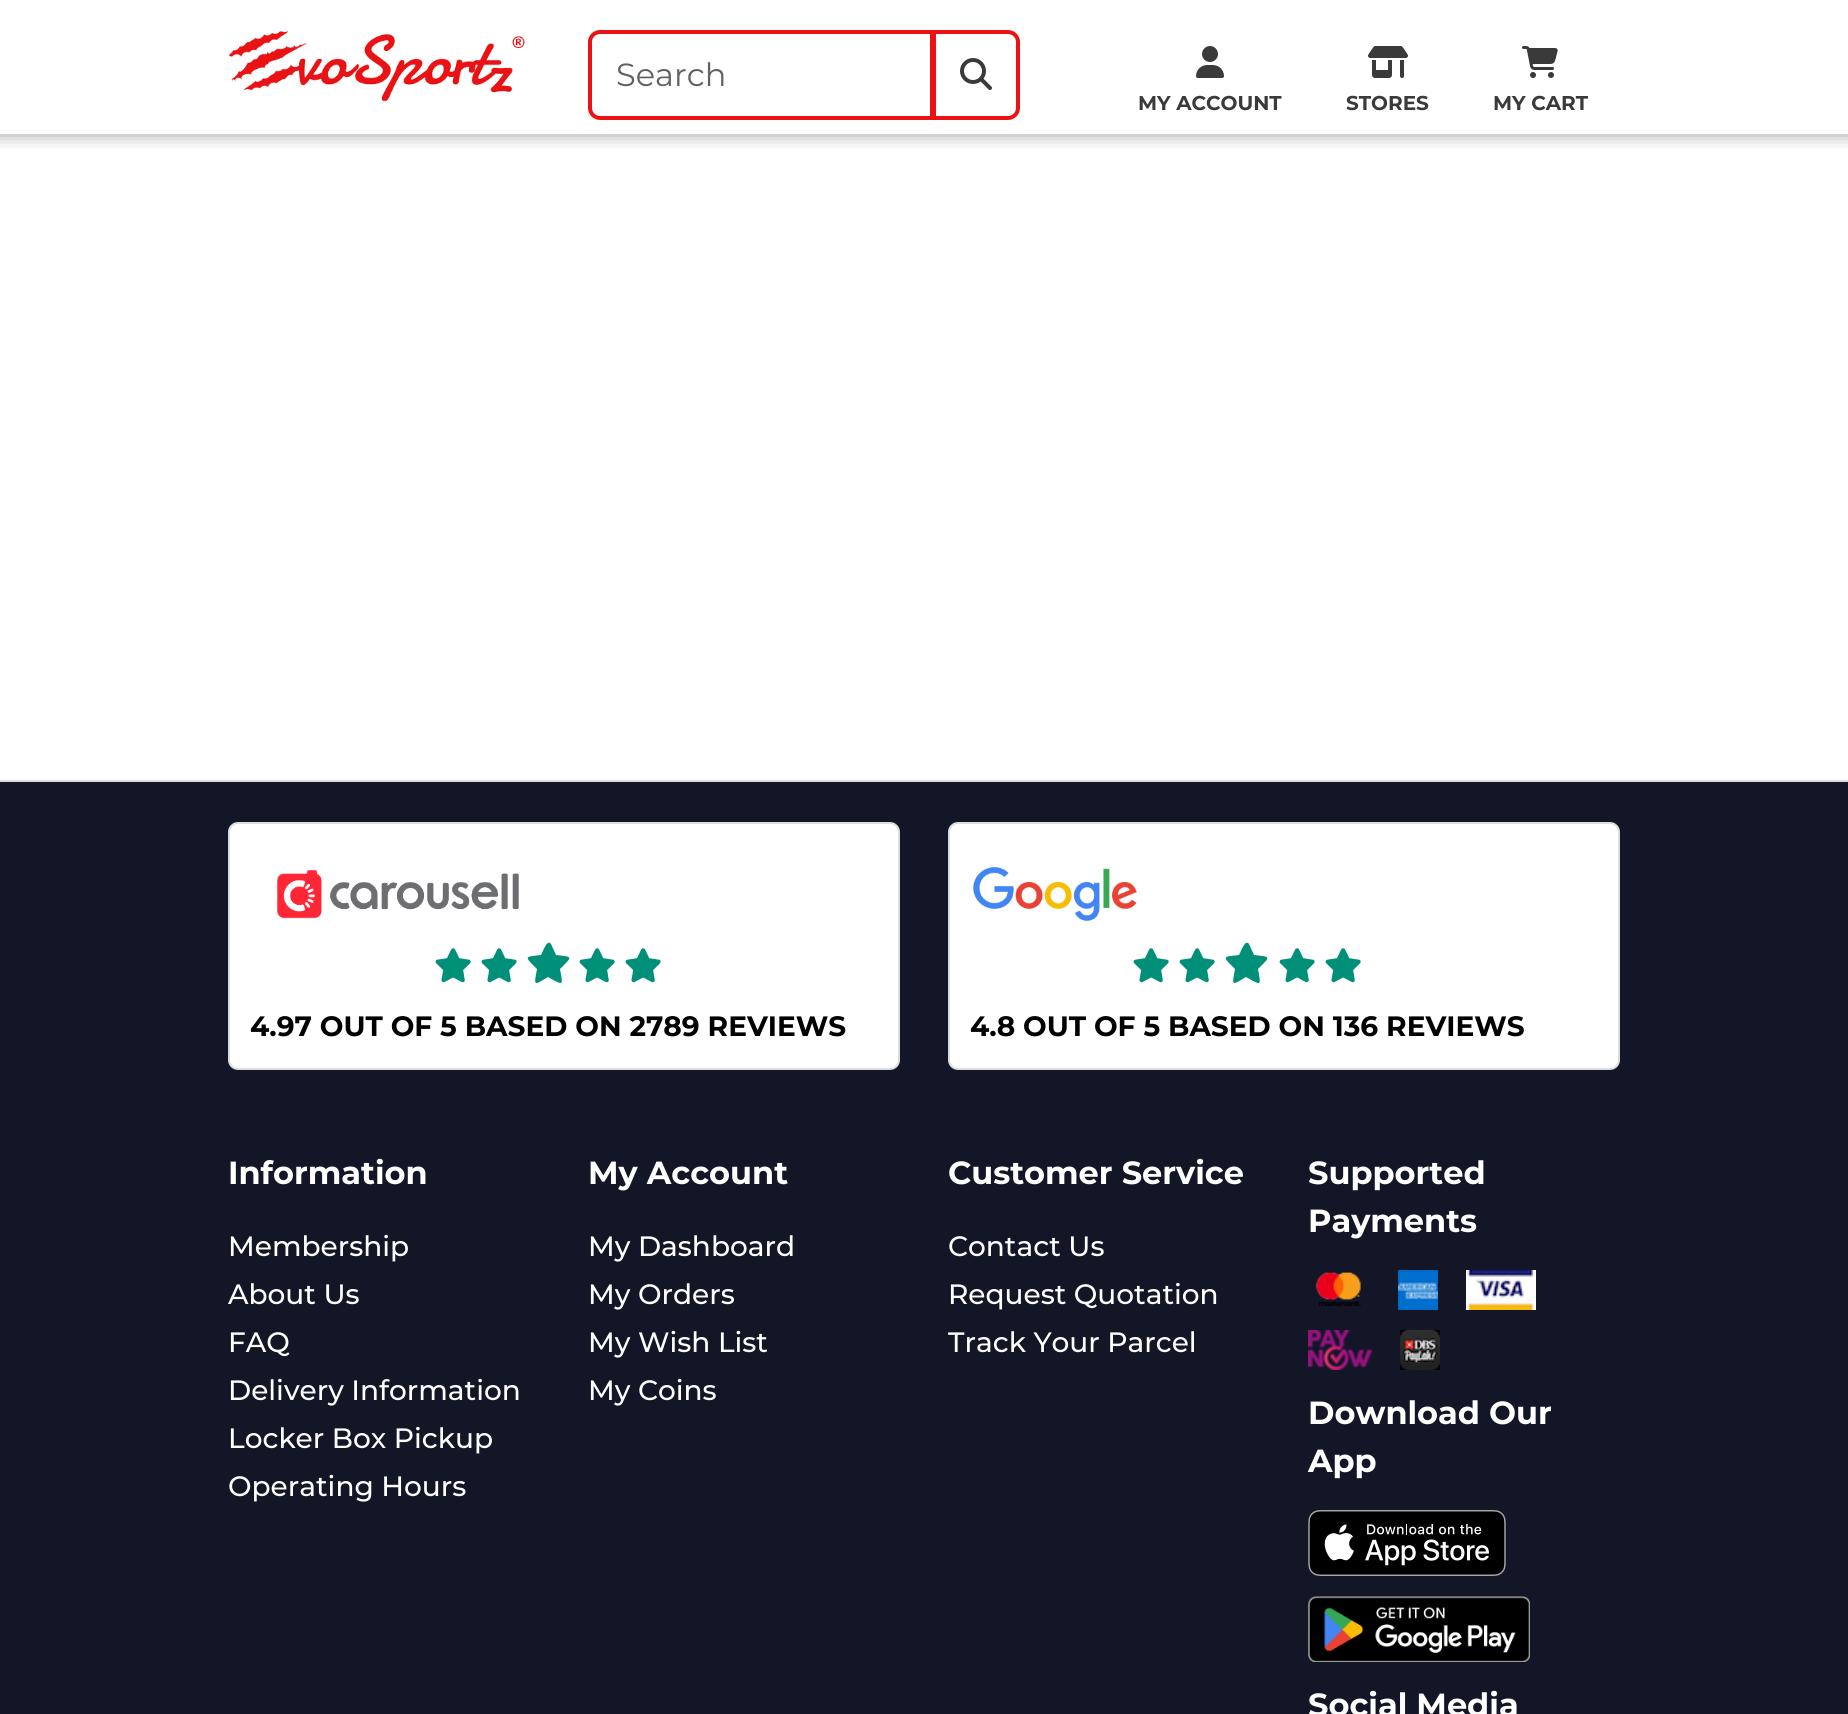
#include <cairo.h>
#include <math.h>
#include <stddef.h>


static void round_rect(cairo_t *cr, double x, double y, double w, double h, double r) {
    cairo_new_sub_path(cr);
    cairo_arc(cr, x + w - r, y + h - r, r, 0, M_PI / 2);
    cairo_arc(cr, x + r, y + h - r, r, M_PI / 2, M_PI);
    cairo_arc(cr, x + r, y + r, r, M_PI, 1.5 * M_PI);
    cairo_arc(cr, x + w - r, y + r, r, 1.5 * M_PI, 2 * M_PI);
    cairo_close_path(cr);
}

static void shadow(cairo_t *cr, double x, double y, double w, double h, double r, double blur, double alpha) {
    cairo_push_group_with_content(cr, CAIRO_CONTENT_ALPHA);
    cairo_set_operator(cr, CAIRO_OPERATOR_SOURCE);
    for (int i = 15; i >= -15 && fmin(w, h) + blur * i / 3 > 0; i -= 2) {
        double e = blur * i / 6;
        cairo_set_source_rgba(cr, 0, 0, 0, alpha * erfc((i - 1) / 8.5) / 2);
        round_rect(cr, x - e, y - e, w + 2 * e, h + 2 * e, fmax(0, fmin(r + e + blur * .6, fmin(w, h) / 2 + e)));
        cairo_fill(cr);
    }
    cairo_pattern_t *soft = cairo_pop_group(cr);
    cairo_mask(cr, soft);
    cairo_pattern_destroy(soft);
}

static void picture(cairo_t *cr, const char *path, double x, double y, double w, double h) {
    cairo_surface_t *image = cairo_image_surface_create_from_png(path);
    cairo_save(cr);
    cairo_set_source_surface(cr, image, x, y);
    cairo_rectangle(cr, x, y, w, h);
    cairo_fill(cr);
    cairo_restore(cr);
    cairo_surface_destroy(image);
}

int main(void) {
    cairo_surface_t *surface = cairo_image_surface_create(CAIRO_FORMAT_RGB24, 1848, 1714);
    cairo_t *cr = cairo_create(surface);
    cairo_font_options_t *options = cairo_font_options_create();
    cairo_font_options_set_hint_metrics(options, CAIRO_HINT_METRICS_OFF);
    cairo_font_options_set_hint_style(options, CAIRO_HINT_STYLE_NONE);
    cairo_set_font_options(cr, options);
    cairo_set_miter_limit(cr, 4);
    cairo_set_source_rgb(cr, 1, 1, 1);
    cairo_paint(cr);
    cairo_save(cr);
    cairo_rectangle(cr, 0, 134, 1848, 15);
    cairo_clip(cr);
    cairo_set_source_rgb(cr, 0.035, 0.035, 0.035);
    shadow(cr, -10, -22, 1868, 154, 0, 10, 0.5);
    cairo_restore(cr);
    picture(cr, "img1.png", 228, 31, 297, 71);
    cairo_new_path(cr);
    cairo_move_to(cr, 600, 32);
    cairo_line_to(cr, 932, 32);
    cairo_line_to(cr, 932, 118);
    cairo_line_to(cr, 600, 118);
    cairo_curve_to(cr, 594.5, 118, 590, 113.5, 590, 108);
    cairo_line_to(cr, 590, 42);
    cairo_curve_to(cr, 590, 36.5, 594.5, 32, 600, 32);
    cairo_close_path(cr);
    cairo_set_source_rgb(cr, 0.918, 0.071, 0.078);
    cairo_set_line_width(cr, 4);
    cairo_stroke(cr);
    cairo_select_font_face(cr, "Montserrat", CAIRO_FONT_SLANT_NORMAL, CAIRO_FONT_WEIGHT_NORMAL);
    cairo_set_font_size(cr, 32);
    cairo_set_source_rgb(cr, 0.373, 0.38, 0.392);
    cairo_move_to(cr, 616, 86);
    cairo_show_text(cr, "Search");
    cairo_new_path(cr);
    cairo_move_to(cr, 934, 32);
    cairo_line_to(cr, 1008, 32);
    cairo_curve_to(cr, 1013.5, 32, 1018, 36.5, 1018, 42);
    cairo_line_to(cr, 1018, 108);
    cairo_curve_to(cr, 1018, 113.5, 1013.5, 118, 1008, 118);
    cairo_line_to(cr, 934, 118);
    cairo_close_path(cr);
    cairo_set_source_rgb(cr, 0.918, 0.071, 0.078);
    cairo_stroke(cr);
    picture(cr, "img2.png", 960, 58, 32, 32);
    picture(cr, "img3.png", 1196, 46, 28, 32);
    cairo_select_font_face(cr, "Montserrat", CAIRO_FONT_SLANT_NORMAL, CAIRO_FONT_WEIGHT_BOLD);
    cairo_set_font_size(cr, 20);
    cairo_set_source_rgb(cr, 0.227, 0.227, 0.227);
    cairo_move_to(cr, 1138, 110);
    cairo_show_text(cr, "MY ACCOUNT");
    picture(cr, "img4.png", 1368, 46, 40, 32);
    cairo_move_to(cr, 1346, 110);
    cairo_show_text(cr, "STORES");
    picture(cr, "img5.png", 1522, 46, 36, 32);
    cairo_move_to(cr, 1493, 110);
    cairo_show_text(cr, "MY CART");
    cairo_set_source_rgb(cr, 0.075, 0.086, 0.153);
    cairo_rectangle(cr, 0, 782, 1848, 932);
    cairo_fill(cr);
    cairo_set_source_rgb(cr, 0.867, 0.867, 0.867);
    cairo_rectangle(cr, 0, 780, 1848, 2);
    cairo_fill(cr);
    cairo_set_source_rgb(cr, 1, 1, 1);
    round_rect(cr, 229, 823, 670, 246, 9);
    cairo_fill_preserve(cr);
    cairo_set_source_rgb(cr, 0.867, 0.867, 0.867);
    cairo_set_line_width(cr, 2);
    cairo_stroke(cr);
    picture(cr, "img6.png", 277, 869, 242, 50);
    picture(cr, "img7.png", 435, 948, 36, 35);
    picture(cr, "img7.png", 481, 948, 36, 35);
    cairo_set_source_rgb(cr, 0, 0.561, 0.475);
    cairo_new_path(cr);
    cairo_move_to(cr, 551, 944);
    cairo_curve_to(cr, 547, 938, 542, 954, 541, 955);
    cairo_curve_to(cr, 524, 957, 524, 956, 537, 969);
    cairo_curve_to(cr, 534, 986, 533, 986, 548, 977);
    cairo_curve_to(cr, 564, 986, 563, 986, 560, 969);
    cairo_curve_to(cr, 573, 956, 573, 957, 556, 955);
    cairo_close_path(cr);
    cairo_fill(cr);
    picture(cr, "img7.png", 579, 948, 36, 35);
    picture(cr, "img7.png", 625, 948, 36, 35);
    cairo_set_font_size(cr, 28);
    cairo_set_source_rgb(cr, 0, 0, 0);
    cairo_move_to(cr, 250, 1036);
    cairo_show_text(cr, "4.97 OUT OF 5 BASED ON 2789 REVIEWS");
    cairo_set_source_rgb(cr, 1, 1, 1);
    round_rect(cr, 949, 823, 670, 246, 9);
    cairo_fill_preserve(cr);
    cairo_set_source_rgb(cr, 0.867, 0.867, 0.867);
    cairo_stroke(cr);
    picture(cr, "img8.png", 973, 867, 164, 54);
    picture(cr, "img7.png", 1133, 948, 36, 35);
    picture(cr, "img7.png", 1179, 948, 36, 35);
    cairo_set_source_rgb(cr, 0, 0.561, 0.475);
    cairo_new_path(cr);
    cairo_move_to(cr, 1249, 944);
    cairo_curve_to(cr, 1245, 938, 1240, 954, 1239, 955);
    cairo_curve_to(cr, 1222, 957, 1222, 956, 1235, 969);
    cairo_curve_to(cr, 1232, 986, 1231, 986, 1246, 977);
    cairo_curve_to(cr, 1262, 986, 1261, 986, 1258, 969);
    cairo_curve_to(cr, 1271, 956, 1271, 957, 1254, 955);
    cairo_close_path(cr);
    cairo_fill(cr);
    picture(cr, "img7.png", 1279, 948, 36, 35);
    picture(cr, "img7.png", 1325, 948, 36, 35);
    cairo_set_source_rgb(cr, 0, 0, 0);
    cairo_move_to(cr, 970, 1036);
    cairo_show_text(cr, "4.8 OUT OF 5 BASED ON 136 REVIEWS");
    cairo_set_font_size(cr, 32);
    cairo_set_source_rgb(cr, 1, 1, 1);
    cairo_move_to(cr, 228, 1184);
    cairo_show_text(cr, "Information");
    cairo_select_font_face(cr, "Montserrat Medium", CAIRO_FONT_SLANT_NORMAL, CAIRO_FONT_WEIGHT_NORMAL);
    cairo_set_font_size(cr, 28);
    cairo_move_to(cr, 228, 1256);
    cairo_show_text(cr, "Membership");
    cairo_move_to(cr, 228, 1304);
    cairo_show_text(cr, "About Us");
    cairo_move_to(cr, 228, 1352);
    cairo_show_text(cr, "FAQ");
    cairo_move_to(cr, 228, 1400);
    cairo_show_text(cr, "Delivery Information");
    cairo_move_to(cr, 228, 1448);
    cairo_show_text(cr, "Locker Box Pickup");
    cairo_move_to(cr, 228, 1496);
    cairo_show_text(cr, "Operating Hours");
    cairo_select_font_face(cr, "Montserrat", CAIRO_FONT_SLANT_NORMAL, CAIRO_FONT_WEIGHT_BOLD);
    cairo_set_font_size(cr, 32);
    cairo_move_to(cr, 588, 1184);
    cairo_show_text(cr, "My Account");
    cairo_select_font_face(cr, "Montserrat Medium", CAIRO_FONT_SLANT_NORMAL, CAIRO_FONT_WEIGHT_NORMAL);
    cairo_set_font_size(cr, 28);
    cairo_move_to(cr, 588, 1256);
    cairo_show_text(cr, "My Dashboard");
    cairo_move_to(cr, 588, 1304);
    cairo_show_text(cr, "My Orders");
    cairo_move_to(cr, 588, 1352);
    cairo_show_text(cr, "My Wish List");
    cairo_move_to(cr, 588, 1400);
    cairo_show_text(cr, "My Coins");
    cairo_select_font_face(cr, "Montserrat", CAIRO_FONT_SLANT_NORMAL, CAIRO_FONT_WEIGHT_BOLD);
    cairo_set_font_size(cr, 32);
    cairo_move_to(cr, 948, 1184);
    cairo_show_text(cr, "Customer Service");
    cairo_select_font_face(cr, "Montserrat Medium", CAIRO_FONT_SLANT_NORMAL, CAIRO_FONT_WEIGHT_NORMAL);
    cairo_set_font_size(cr, 28);
    cairo_move_to(cr, 948, 1256);
    cairo_show_text(cr, "Contact Us");
    cairo_move_to(cr, 948, 1304);
    cairo_show_text(cr, "Request Quotation");
    cairo_move_to(cr, 948, 1352);
    cairo_show_text(cr, "Track Your Parcel");
    cairo_select_font_face(cr, "Montserrat", CAIRO_FONT_SLANT_NORMAL, CAIRO_FONT_WEIGHT_BOLD);
    cairo_set_font_size(cr, 32);
    cairo_move_to(cr, 1308, 1184);
    cairo_show_text(cr, "Supported");
    cairo_move_to(cr, 1308, 1232);
    cairo_show_text(cr, "Payments");
    picture(cr, "img9.png", 1315, 1272, 46, 35);
    picture(cr, "img10.png", 1398, 1270, 40, 40);
    picture(cr, "img11.png", 1466, 1270, 70, 40);
    picture(cr, "img12.png", 1308, 1330, 64, 40);
    picture(cr, "img13.png", 1400, 1330, 40, 40);
    cairo_move_to(cr, 1308, 1424);
    cairo_show_text(cr, "Download Our");
    cairo_move_to(cr, 1308, 1472);
    cairo_show_text(cr, "App");
    picture(cr, "img14.png", 1308, 1510, 198, 66);
    picture(cr, "img15.png", 1308, 1596, 222, 66);
    cairo_move_to(cr, 1308, 1716);
    cairo_show_text(cr, "Social Media");
    cairo_surface_write_to_png(surface, "page.png");
    cairo_font_options_destroy(options);
    cairo_destroy(cr);
    cairo_surface_destroy(surface);
    return 0;
}
